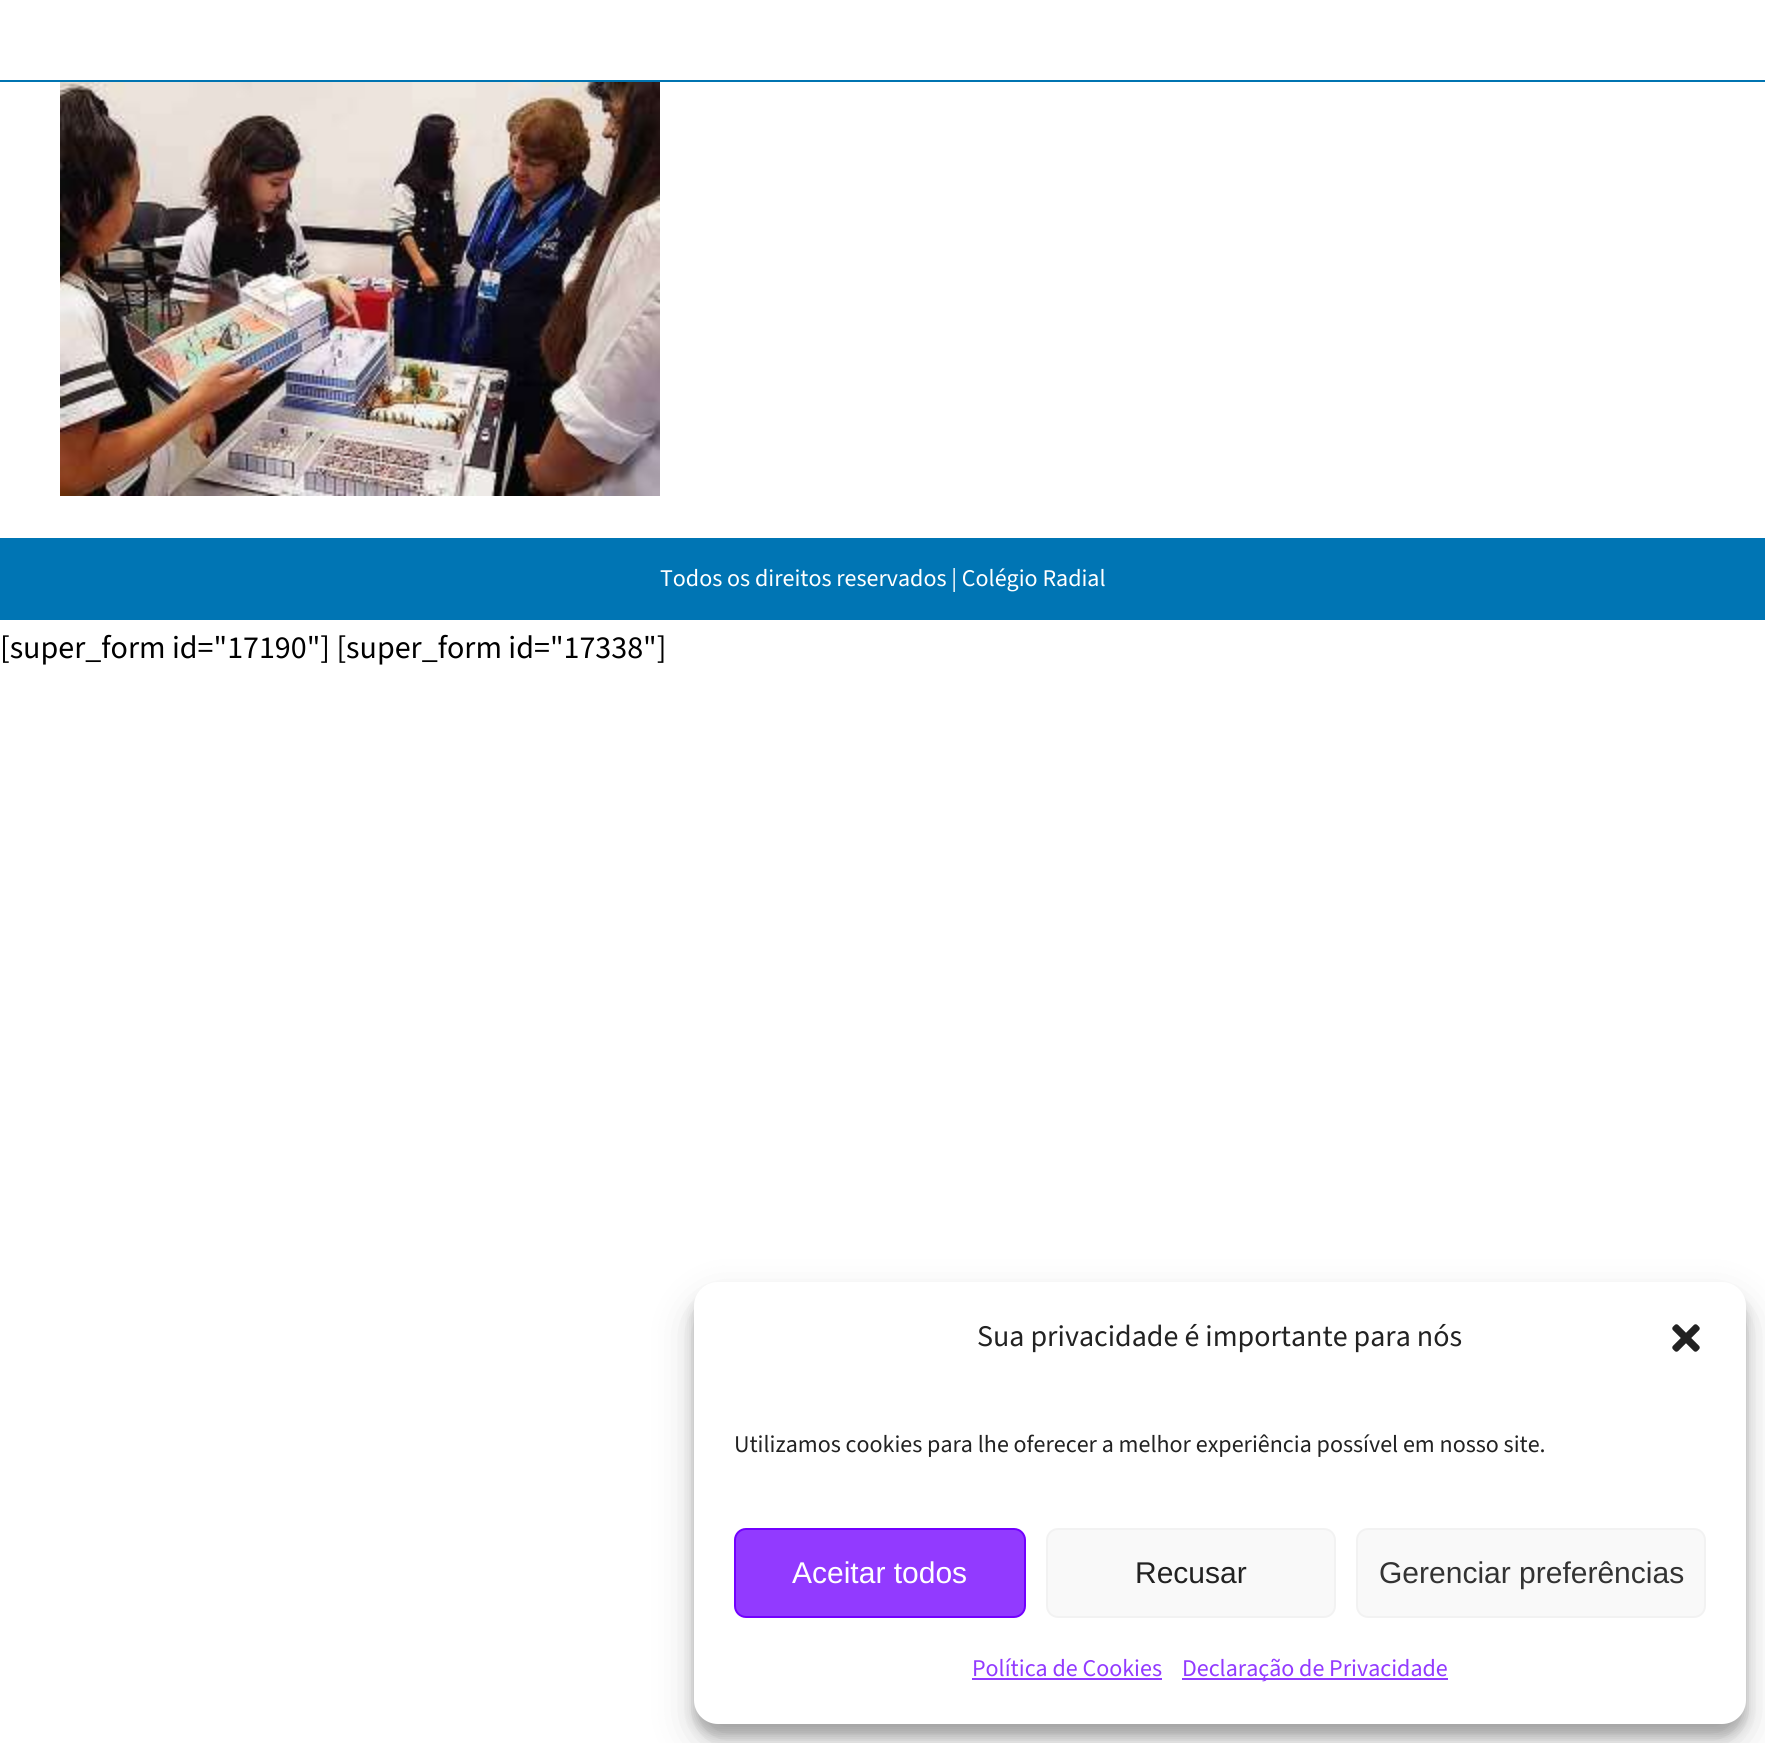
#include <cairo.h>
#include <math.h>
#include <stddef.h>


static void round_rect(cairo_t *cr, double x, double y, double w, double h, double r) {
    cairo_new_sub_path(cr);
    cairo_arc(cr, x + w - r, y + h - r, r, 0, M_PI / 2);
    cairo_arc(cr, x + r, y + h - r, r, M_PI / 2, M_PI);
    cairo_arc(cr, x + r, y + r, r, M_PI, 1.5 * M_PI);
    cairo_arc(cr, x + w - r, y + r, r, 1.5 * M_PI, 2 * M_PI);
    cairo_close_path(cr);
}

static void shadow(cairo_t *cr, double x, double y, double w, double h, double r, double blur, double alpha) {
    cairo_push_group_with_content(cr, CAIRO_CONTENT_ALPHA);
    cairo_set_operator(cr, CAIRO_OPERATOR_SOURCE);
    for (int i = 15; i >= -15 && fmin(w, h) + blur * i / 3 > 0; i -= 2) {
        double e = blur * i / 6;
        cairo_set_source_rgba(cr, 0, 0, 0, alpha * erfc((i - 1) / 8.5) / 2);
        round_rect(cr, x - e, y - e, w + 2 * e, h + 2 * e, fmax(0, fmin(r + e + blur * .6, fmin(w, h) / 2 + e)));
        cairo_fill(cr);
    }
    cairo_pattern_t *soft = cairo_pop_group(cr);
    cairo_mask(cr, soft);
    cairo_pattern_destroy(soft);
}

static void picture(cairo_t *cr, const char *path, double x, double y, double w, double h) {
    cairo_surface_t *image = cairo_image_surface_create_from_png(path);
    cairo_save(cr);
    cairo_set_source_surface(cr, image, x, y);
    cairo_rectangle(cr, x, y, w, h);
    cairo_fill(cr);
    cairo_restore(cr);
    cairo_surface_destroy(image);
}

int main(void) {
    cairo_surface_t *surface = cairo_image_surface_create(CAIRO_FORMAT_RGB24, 1765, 1743);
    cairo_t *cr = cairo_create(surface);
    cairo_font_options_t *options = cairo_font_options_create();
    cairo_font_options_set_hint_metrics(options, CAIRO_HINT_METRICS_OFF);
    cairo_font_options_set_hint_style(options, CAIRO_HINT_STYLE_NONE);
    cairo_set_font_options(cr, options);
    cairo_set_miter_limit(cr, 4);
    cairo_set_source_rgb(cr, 1, 1, 1);
    cairo_paint(cr);
    cairo_set_source_rgb(cr, 0, 0.455, 0.694);
    cairo_rectangle(cr, 0, 80, 1765, 2);
    cairo_fill(cr);
    picture(cr, "img1.png", 60, 82, 600, 414);
    cairo_set_source_rgb(cr, 0, 0.459, 0.706);
    cairo_rectangle(cr, 0, 538, 1765, 82);
    cairo_fill(cr);
    cairo_select_font_face(cr, "Source Sans 3", CAIRO_FONT_SLANT_NORMAL, CAIRO_FONT_WEIGHT_NORMAL);
    cairo_set_font_size(cr, 24);
    cairo_set_source_rgb(cr, 1, 1, 1);
    cairo_move_to(cr, 660, 586);
    cairo_show_text(cr, "Todos os direitos reservados | Colégio Radial");
    cairo_set_font_size(cr, 32);
    cairo_set_source_rgb(cr, 0, 0, 0);
    cairo_move_to(cr, 0, 658);
    cairo_show_text(cr, "[super_form id=\"17190\"] [super_form id=\"17338\"]");
    cairo_set_source_rgb(cr, 0, 0, 0);
    shadow(cr, 694, 1294, 1052, 442, 24, 6, 0.23);
    shadow(cr, 694, 1302, 1052, 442, 24, 20, 0.19);
    cairo_set_source_rgb(cr, 1, 1, 1);
    round_rect(cr, 694, 1282, 1052, 442, 24);
    cairo_fill(cr);
    cairo_set_font_size(cr, 30);
    cairo_set_source_rgb(cr, 0.133, 0.133, 0.133);
    cairo_move_to(cr, 977, 1346);
    cairo_show_text(cr, "Sua privacidade é importante para nós");
    picture(cr, "img2.png", 1672, 1324, 28, 28);
    cairo_set_font_size(cr, 24);
    cairo_move_to(cr, 734, 1452);
    cairo_show_text(cr, "Utilizamos cookies para lhe oferecer a melhor experiência possível em nosso site.");
    cairo_set_source_rgb(cr, 0.573, 0.227, 1);
    round_rect(cr, 735, 1529, 290, 88, 11);
    cairo_fill_preserve(cr);
    cairo_set_source_rgb(cr, 0.447, 0, 1);
    cairo_stroke(cr);
    cairo_select_font_face(cr, "Liberation Sans", CAIRO_FONT_SLANT_NORMAL, CAIRO_FONT_WEIGHT_NORMAL);
    cairo_set_font_size(cr, 30);
    cairo_set_source_rgb(cr, 1, 1, 1);
    cairo_move_to(cr, 792, 1583);
    cairo_show_text(cr, "Aceitar todos");
    cairo_set_source_rgb(cr, 0.976, 0.976, 0.976);
    round_rect(cr, 1047, 1529, 288, 88, 11);
    cairo_fill_preserve(cr);
    cairo_set_source_rgb(cr, 0.949, 0.949, 0.949);
    cairo_stroke(cr);
    cairo_set_source_rgb(cr, 0.133, 0.133, 0.133);
    cairo_move_to(cr, 1135, 1583);
    cairo_show_text(cr, "Recusar");
    cairo_set_source_rgb(cr, 0.976, 0.976, 0.976);
    round_rect(cr, 1357, 1529, 348, 88, 11);
    cairo_fill_preserve(cr);
    cairo_set_source_rgb(cr, 0.949, 0.949, 0.949);
    cairo_stroke(cr);
    cairo_set_source_rgb(cr, 0.2, 0.2, 0.2);
    cairo_move_to(cr, 1379, 1583);
    cairo_show_text(cr, "Gerenciar preferências");
    cairo_select_font_face(cr, "Source Sans 3", CAIRO_FONT_SLANT_NORMAL, CAIRO_FONT_WEIGHT_NORMAL);
    cairo_set_font_size(cr, 24);
    cairo_set_source_rgb(cr, 0.573, 0.227, 1);
    cairo_move_to(cr, 972, 1676);
    cairo_show_text(cr, "Política de Cookies");
    cairo_rectangle(cr, 972, 1678, 190, 2);
    cairo_fill(cr);
    cairo_rectangle(cr, 1182, 1678, 266, 2);
    cairo_fill(cr);
    cairo_move_to(cr, 1182, 1676);
    cairo_show_text(cr, "Declaração de Privacidade");
    cairo_surface_write_to_png(surface, "page.png");
    cairo_font_options_destroy(options);
    cairo_destroy(cr);
    cairo_surface_destroy(surface);
    return 0;
}
